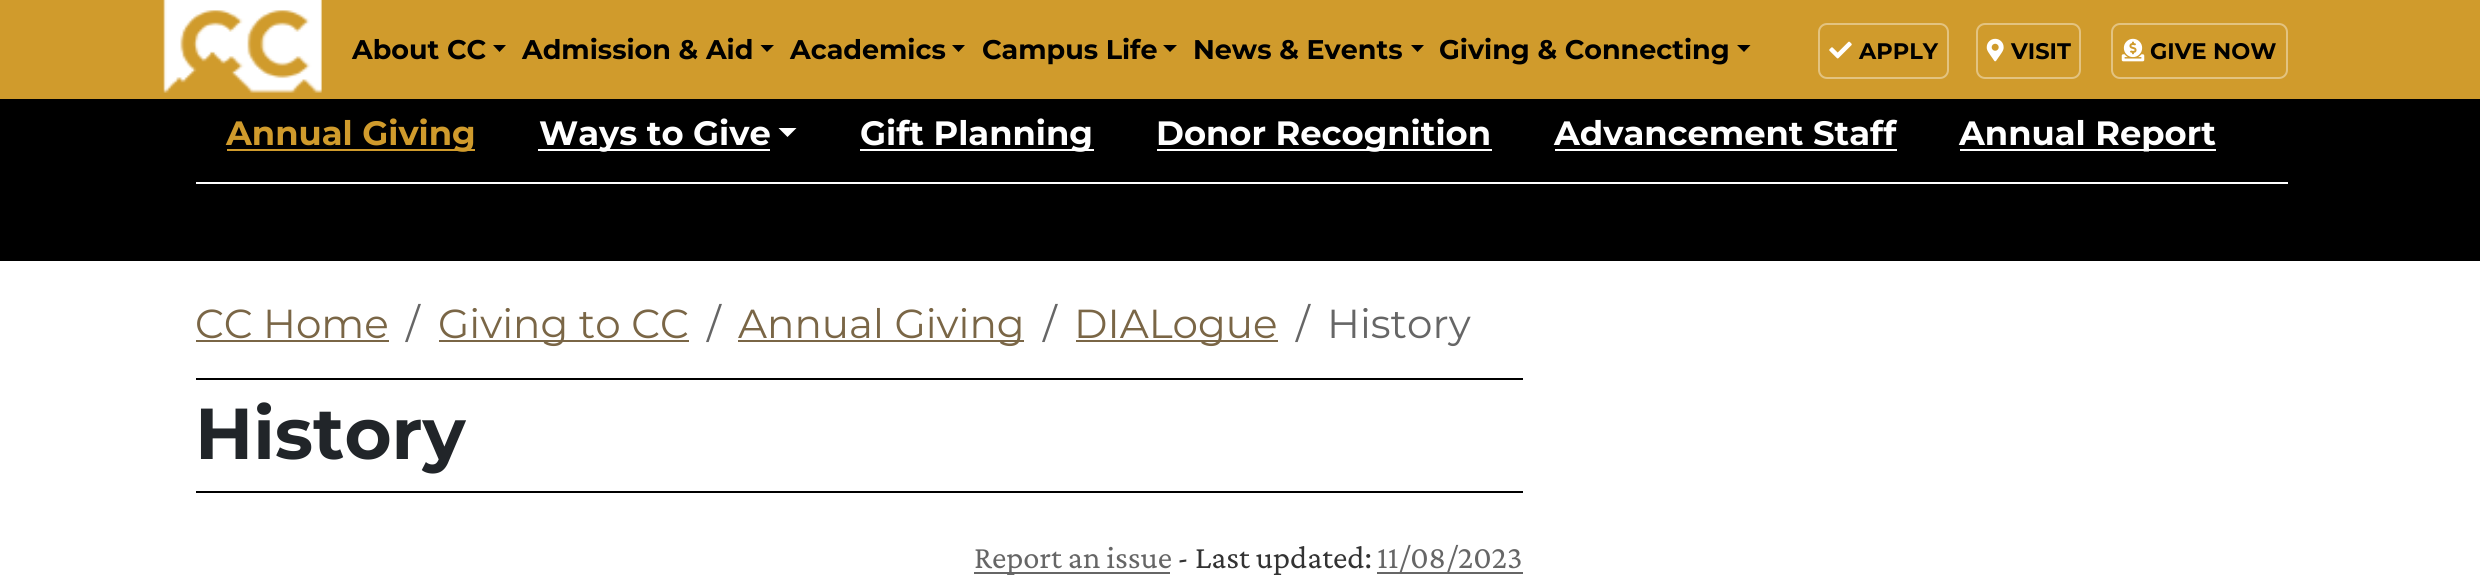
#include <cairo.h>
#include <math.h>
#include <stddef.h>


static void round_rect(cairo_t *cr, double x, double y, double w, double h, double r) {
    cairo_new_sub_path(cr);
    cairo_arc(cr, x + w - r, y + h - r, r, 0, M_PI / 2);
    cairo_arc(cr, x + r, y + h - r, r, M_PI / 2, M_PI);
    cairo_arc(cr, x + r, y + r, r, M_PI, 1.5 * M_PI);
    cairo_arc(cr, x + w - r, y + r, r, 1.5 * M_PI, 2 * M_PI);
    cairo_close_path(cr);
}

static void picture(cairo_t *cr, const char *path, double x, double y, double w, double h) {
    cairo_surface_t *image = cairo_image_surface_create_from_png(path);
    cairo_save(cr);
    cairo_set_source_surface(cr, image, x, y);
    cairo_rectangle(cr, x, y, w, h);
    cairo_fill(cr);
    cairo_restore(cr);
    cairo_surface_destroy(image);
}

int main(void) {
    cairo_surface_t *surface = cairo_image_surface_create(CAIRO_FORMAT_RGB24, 2480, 575);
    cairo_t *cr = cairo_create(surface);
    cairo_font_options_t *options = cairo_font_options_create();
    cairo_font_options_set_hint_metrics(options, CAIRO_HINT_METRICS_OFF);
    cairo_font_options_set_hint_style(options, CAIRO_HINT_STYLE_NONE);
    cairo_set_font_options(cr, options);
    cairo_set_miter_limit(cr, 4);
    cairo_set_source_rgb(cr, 1, 1, 1);
    cairo_paint(cr);
    cairo_set_source_rgb(cr, 0.816, 0.608, 0.173);
    cairo_rectangle(cr, 0, 0, 2480, 99);
    cairo_fill(cr);
    picture(cr, "img1.png", 163, 0, 159, 93);
    cairo_select_font_face(cr, "Montserrat", CAIRO_FONT_SLANT_NORMAL, CAIRO_FONT_WEIGHT_BOLD);
    cairo_set_font_size(cr, 27);
    cairo_set_source_rgb(cr, 0, 0, 0);
    cairo_move_to(cr, 352, 59);
    cairo_show_text(cr, "About CC");
    cairo_new_path(cr);
    cairo_move_to(cr, 493, 45);
    cairo_line_to(cr, 506, 45);
    cairo_line_to(cr, 499.5, 52);
    cairo_close_path(cr);
    cairo_fill(cr);
    cairo_move_to(cr, 522, 59);
    cairo_show_text(cr, "Admission & Aid");
    cairo_new_path(cr);
    cairo_move_to(cr, 760.5, 45);
    cairo_line_to(cr, 774, 45);
    cairo_line_to(cr, 767, 52);
    cairo_close_path(cr);
    cairo_fill(cr);
    cairo_move_to(cr, 790, 59);
    cairo_show_text(cr, "Academics");
    cairo_new_path(cr);
    cairo_move_to(cr, 952, 45);
    cairo_line_to(cr, 965, 45);
    cairo_line_to(cr, 958.5, 52);
    cairo_close_path(cr);
    cairo_fill(cr);
    cairo_move_to(cr, 982, 59);
    cairo_show_text(cr, "Campus Life");
    cairo_new_path(cr);
    cairo_move_to(cr, 1163, 45);
    cairo_line_to(cr, 1177, 45);
    cairo_line_to(cr, 1170, 52);
    cairo_close_path(cr);
    cairo_fill(cr);
    cairo_move_to(cr, 1193, 59);
    cairo_show_text(cr, "News & Events");
    cairo_new_path(cr);
    cairo_move_to(cr, 1411, 45);
    cairo_line_to(cr, 1424, 45);
    cairo_line_to(cr, 1417.5, 52);
    cairo_close_path(cr);
    cairo_fill(cr);
    cairo_move_to(cr, 1439, 59);
    cairo_show_text(cr, "Giving & Connecting");
    cairo_new_path(cr);
    cairo_move_to(cr, 1737, 45);
    cairo_line_to(cr, 1750.5, 45);
    cairo_line_to(cr, 1744, 52);
    cairo_close_path(cr);
    cairo_fill(cr);
    round_rect(cr, 1819, 24, 129, 54, 8);
    cairo_set_source_rgb(cr, 0.89, 0.765, 0.502);
    cairo_stroke(cr);
    picture(cr, "img2.png", 1829, 41, 23, 18);
    cairo_set_font_size(cr, 22.5);
    cairo_set_source_rgb(cr, 0, 0, 0);
    cairo_move_to(cr, 1859, 59);
    cairo_show_text(cr, "APPLY");
    round_rect(cr, 1977, 24, 103, 54, 8);
    cairo_set_source_rgb(cr, 0.89, 0.765, 0.502);
    cairo_stroke(cr);
    picture(cr, "img3.png", 1986, 38, 18, 24);
    cairo_set_source_rgb(cr, 0, 0, 0);
    cairo_move_to(cr, 2011, 59);
    cairo_show_text(cr, "VISIT");
    round_rect(cr, 2112, 24, 175, 54, 8);
    cairo_set_source_rgb(cr, 0.89, 0.765, 0.502);
    cairo_stroke(cr);
    picture(cr, "img4.png", 2121, 38, 24, 24);
    cairo_set_source_rgb(cr, 0, 0, 0);
    cairo_move_to(cr, 2150, 59);
    cairo_show_text(cr, "GIVE NOW");
    cairo_rectangle(cr, 0, 99, 2480, 162);
    cairo_fill(cr);
    cairo_set_source_rgb(cr, 1, 1, 1);
    cairo_rectangle(cr, 196, 182, 2092, 2);
    cairo_fill(cr);
    cairo_set_source_rgb(cr, 0.816, 0.608, 0.173);
    cairo_rectangle(cr, 227, 149, 248, 2);
    cairo_fill(cr);
    cairo_set_font_size(cr, 33.75);
    cairo_move_to(cr, 226, 145);
    cairo_show_text(cr, "Annual Giving");
    cairo_set_source_rgb(cr, 1, 1, 1);
    cairo_rectangle(cr, 538, 149, 232, 2);
    cairo_fill(cr);
    cairo_move_to(cr, 539, 145);
    cairo_show_text(cr, "Ways to Give");
    cairo_new_path(cr);
    cairo_move_to(cr, 778.5, 128);
    cairo_line_to(cr, 796.5, 128);
    cairo_line_to(cr, 787.5, 137);
    cairo_close_path(cr);
    cairo_fill(cr);
    cairo_rectangle(cr, 860, 149, 234, 2);
    cairo_fill(cr);
    cairo_move_to(cr, 860, 145);
    cairo_show_text(cr, "Gift Planning");
    cairo_rectangle(cr, 1157, 149, 335, 2);
    cairo_fill(cr);
    cairo_move_to(cr, 1156, 145);
    cairo_show_text(cr, "Donor Recognition");
    cairo_move_to(cr, 1554, 145);
    cairo_show_text(cr, "Advancement Staff");
    cairo_rectangle(cr, 1555, 149, 342, 2);
    cairo_fill(cr);
    cairo_rectangle(cr, 1960, 149, 256, 2);
    cairo_fill(cr);
    cairo_move_to(cr, 1959, 145);
    cairo_show_text(cr, "Annual Report");
    cairo_select_font_face(cr, "Montserrat", CAIRO_FONT_SLANT_NORMAL, CAIRO_FONT_WEIGHT_NORMAL);
    cairo_set_font_size(cr, 40.5);
    cairo_set_source_rgb(cr, 0.478, 0.4, 0.275);
    cairo_move_to(cr, 195, 338);
    cairo_show_text(cr, "CC Home");
    cairo_rectangle(cr, 196, 340, 193, 2);
    cairo_fill(cr);
    cairo_set_source_rgb(cr, 0.4, 0.4, 0.4);
    cairo_move_to(cr, 406, 338);
    cairo_show_text(cr, "/");
    cairo_set_source_rgb(cr, 0.478, 0.4, 0.275);
    cairo_rectangle(cr, 439, 340, 250, 2);
    cairo_fill(cr);
    cairo_move_to(cr, 438, 338);
    cairo_show_text(cr, "Giving to CC");
    cairo_set_source_rgb(cr, 0.4, 0.4, 0.4);
    cairo_move_to(cr, 707, 338);
    cairo_show_text(cr, "/");
    cairo_set_source_rgb(cr, 0.478, 0.4, 0.275);
    cairo_rectangle(cr, 738, 340, 286, 2);
    cairo_fill(cr);
    cairo_move_to(cr, 738, 338);
    cairo_show_text(cr, "Annual Giving");
    cairo_set_source_rgb(cr, 0.4, 0.4, 0.4);
    cairo_move_to(cr, 1043, 338);
    cairo_show_text(cr, "/");
    cairo_set_source_rgb(cr, 0.478, 0.4, 0.275);
    cairo_rectangle(cr, 1076, 340, 202, 2);
    cairo_fill(cr);
    cairo_move_to(cr, 1074, 338);
    cairo_show_text(cr, "DIALogue");
    cairo_set_source_rgb(cr, 0.4, 0.4, 0.4);
    cairo_move_to(cr, 1296, 338);
    cairo_show_text(cr, "/");
    cairo_move_to(cr, 1327, 338);
    cairo_show_text(cr, "History");
    cairo_set_source_rgb(cr, 0, 0, 0);
    cairo_rectangle(cr, 196, 378, 1327, 2);
    cairo_fill(cr);
    cairo_rectangle(cr, 196, 491, 1327, 2);
    cairo_fill(cr);
    cairo_select_font_face(cr, "Montserrat", CAIRO_FONT_SLANT_NORMAL, CAIRO_FONT_WEIGHT_BOLD);
    cairo_set_font_size(cr, 72);
    cairo_set_source_rgb(cr, 0.129, 0.145, 0.161);
    cairo_move_to(cr, 195, 459);
    cairo_show_text(cr, "History");
    cairo_set_source_rgb(cr, 0.4, 0.4, 0.4);
    cairo_rectangle(cr, 974, 572, 196, 2);
    cairo_fill(cr);
    cairo_select_font_face(cr, "Crimson Pro", CAIRO_FONT_SLANT_NORMAL, CAIRO_FONT_WEIGHT_NORMAL);
    cairo_set_font_size(cr, 32.5);
    cairo_move_to(cr, 974, 568);
    cairo_show_text(cr, "Report an issue");
    cairo_set_source_rgb(cr, 0.2, 0.2, 0.2);
    cairo_move_to(cr, 1177, 568);
    cairo_show_text(cr, "- Last updated:");
    cairo_set_source_rgb(cr, 0.4, 0.4, 0.4);
    cairo_rectangle(cr, 1377, 572, 146, 2);
    cairo_fill(cr);
    cairo_move_to(cr, 1377, 568);
    cairo_show_text(cr, "11/08/2023");
    cairo_surface_write_to_png(surface, "page.png");
    cairo_font_options_destroy(options);
    cairo_destroy(cr);
    cairo_surface_destroy(surface);
    return 0;
}
